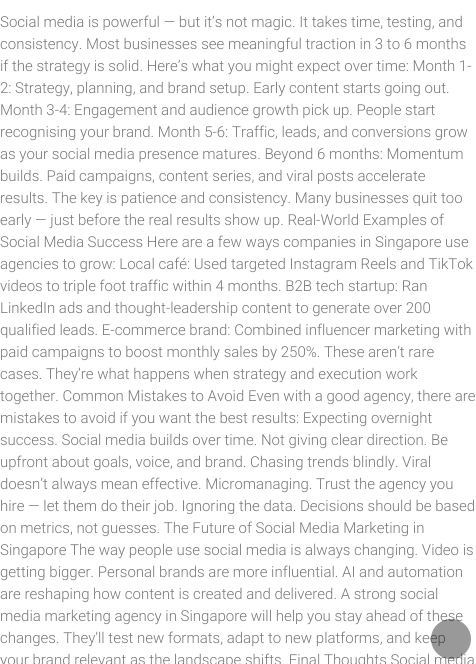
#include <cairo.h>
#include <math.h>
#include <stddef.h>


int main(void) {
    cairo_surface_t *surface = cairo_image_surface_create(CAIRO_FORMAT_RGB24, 476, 664);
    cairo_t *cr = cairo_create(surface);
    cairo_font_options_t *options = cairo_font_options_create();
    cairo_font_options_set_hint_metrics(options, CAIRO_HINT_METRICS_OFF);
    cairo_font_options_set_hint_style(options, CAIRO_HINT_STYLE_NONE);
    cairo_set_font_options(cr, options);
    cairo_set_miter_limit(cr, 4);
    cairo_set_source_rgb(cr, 1, 1, 1);
    cairo_paint(cr);
    cairo_select_font_face(cr, "Roboto Light", CAIRO_FONT_SLANT_NORMAL, CAIRO_FONT_WEIGHT_NORMAL);
    cairo_set_font_size(cr, 15);
    cairo_set_source_rgb(cr, 0.467, 0.467, 0.467);
    cairo_move_to(cr, 0, 27);
    cairo_show_text(cr, "Social media is powerful — but it’s not magic. It takes time, testing, and");
    cairo_move_to(cr, 0, 49);
    cairo_show_text(cr, "consistency. Most businesses see meaningful traction in 3 to 6 months");
    cairo_move_to(cr, 0, 71);
    cairo_show_text(cr, "if the strategy is solid. Here’s what you might expect over time: Month 1-");
    cairo_move_to(cr, 0, 93);
    cairo_show_text(cr, "2: Strategy, planning, and brand setup. Early content starts going out.");
    cairo_move_to(cr, 0, 115);
    cairo_show_text(cr, "Month 3-4: Engagement and audience growth pick up. People start");
    cairo_move_to(cr, 0, 137);
    cairo_show_text(cr, "recognising your brand. Month 5-6: Traffic, leads, and conversions grow");
    cairo_move_to(cr, 0, 159);
    cairo_show_text(cr, "as your social media presence matures. Beyond 6 months: Momentum");
    cairo_move_to(cr, 0, 181);
    cairo_show_text(cr, "builds. Paid campaigns, content series, and viral posts accelerate");
    cairo_move_to(cr, 0, 203);
    cairo_show_text(cr, "results. The key is patience and consistency. Many businesses quit too");
    cairo_move_to(cr, 0, 225);
    cairo_show_text(cr, "early — just before the real results show up. Real-World Examples of");
    cairo_move_to(cr, 0, 247);
    cairo_show_text(cr, "Social Media Success Here are a few ways companies in Singapore use");
    cairo_move_to(cr, 0, 269);
    cairo_show_text(cr, "agencies to grow: Local café: Used targeted Instagram Reels and TikTok");
    cairo_move_to(cr, 0, 291);
    cairo_show_text(cr, "videos to triple foot traffic within 4 months. B2B tech startup: Ran");
    cairo_move_to(cr, 0, 313);
    cairo_show_text(cr, "LinkedIn ads and thought-leadership content to generate over 200");
    cairo_move_to(cr, 0, 335);
    cairo_show_text(cr, "qualified leads. E-commerce brand: Combined influencer marketing with");
    cairo_move_to(cr, 0, 357);
    cairo_show_text(cr, "paid campaigns to boost monthly sales by 250%. These aren’t rare");
    cairo_move_to(cr, 0, 379);
    cairo_show_text(cr, "cases. They’re what happens when strategy and execution work");
    cairo_move_to(cr, 0, 401);
    cairo_show_text(cr, "together. Common Mistakes to Avoid Even with a good agency, there are");
    cairo_move_to(cr, 0, 423);
    cairo_show_text(cr, "mistakes to avoid if you want the best results: Expecting overnight");
    cairo_move_to(cr, 0, 445);
    cairo_show_text(cr, "success. Social media builds over time. Not giving clear direction. Be");
    cairo_move_to(cr, 0, 467);
    cairo_show_text(cr, "upfront about goals, voice, and brand. Chasing trends blindly. Viral");
    cairo_move_to(cr, 0, 489);
    cairo_show_text(cr, "doesn’t always mean effective. Micromanaging. Trust the agency you");
    cairo_move_to(cr, 0, 511);
    cairo_show_text(cr, "hire — let them do their job. Ignoring the data. Decisions should be based");
    cairo_move_to(cr, 0, 533);
    cairo_show_text(cr, "on metrics, not guesses. The Future of Social Media Marketing in");
    cairo_move_to(cr, 0, 555);
    cairo_show_text(cr, "Singapore The way people use social media is always changing. Video is");
    cairo_move_to(cr, 0, 577);
    cairo_show_text(cr, "getting bigger. Personal brands are more influential. AI and automation");
    cairo_move_to(cr, 0, 599);
    cairo_show_text(cr, "are reshaping how content is created and delivered. A strong social");
    cairo_move_to(cr, 0, 621);
    cairo_show_text(cr, "media marketing agency in Singapore will help you stay ahead of these");
    cairo_move_to(cr, 0, 643);
    cairo_show_text(cr, "changes. They’ll test new formats, adapt to new platforms, and keep");
    cairo_move_to(cr, 0, 665);
    cairo_show_text(cr, "your brand relevant as the landscape shifts. Final Thoughts Social media");
    cairo_set_source_rgba(cr, 0, 0, 0, 0.4);
    cairo_new_path(cr);
    cairo_arc(cr, 451, 639, 20, 0, 2 * M_PI);
    cairo_fill(cr);
    cairo_surface_write_to_png(surface, "page.png");
    cairo_font_options_destroy(options);
    cairo_destroy(cr);
    cairo_surface_destroy(surface);
    return 0;
}
